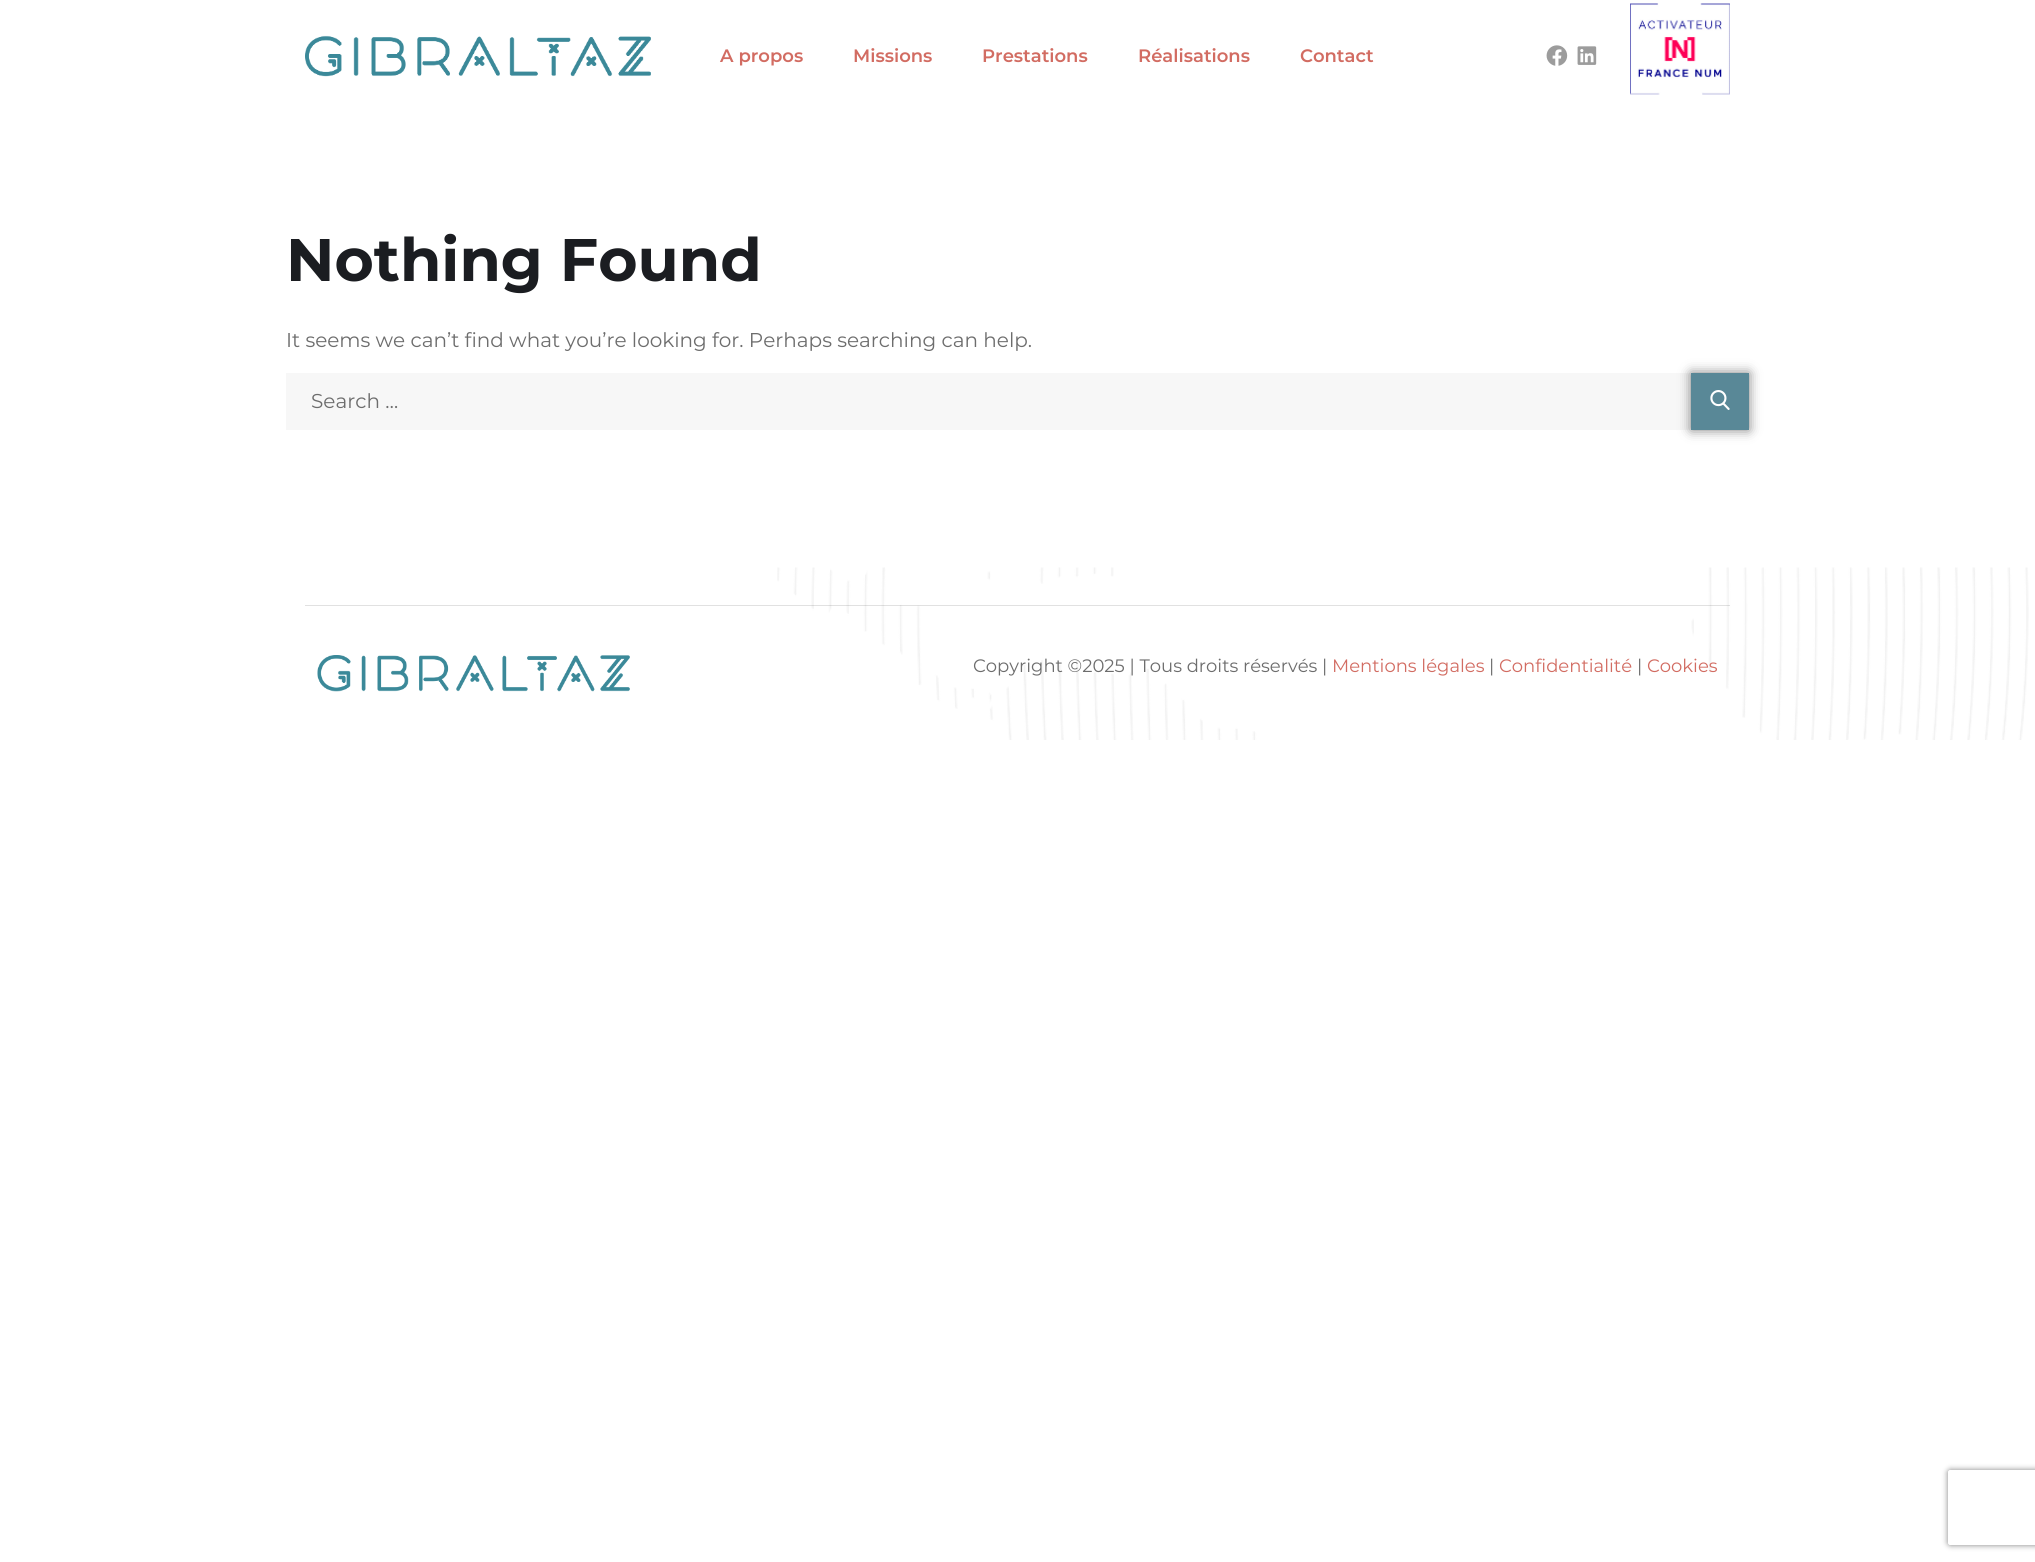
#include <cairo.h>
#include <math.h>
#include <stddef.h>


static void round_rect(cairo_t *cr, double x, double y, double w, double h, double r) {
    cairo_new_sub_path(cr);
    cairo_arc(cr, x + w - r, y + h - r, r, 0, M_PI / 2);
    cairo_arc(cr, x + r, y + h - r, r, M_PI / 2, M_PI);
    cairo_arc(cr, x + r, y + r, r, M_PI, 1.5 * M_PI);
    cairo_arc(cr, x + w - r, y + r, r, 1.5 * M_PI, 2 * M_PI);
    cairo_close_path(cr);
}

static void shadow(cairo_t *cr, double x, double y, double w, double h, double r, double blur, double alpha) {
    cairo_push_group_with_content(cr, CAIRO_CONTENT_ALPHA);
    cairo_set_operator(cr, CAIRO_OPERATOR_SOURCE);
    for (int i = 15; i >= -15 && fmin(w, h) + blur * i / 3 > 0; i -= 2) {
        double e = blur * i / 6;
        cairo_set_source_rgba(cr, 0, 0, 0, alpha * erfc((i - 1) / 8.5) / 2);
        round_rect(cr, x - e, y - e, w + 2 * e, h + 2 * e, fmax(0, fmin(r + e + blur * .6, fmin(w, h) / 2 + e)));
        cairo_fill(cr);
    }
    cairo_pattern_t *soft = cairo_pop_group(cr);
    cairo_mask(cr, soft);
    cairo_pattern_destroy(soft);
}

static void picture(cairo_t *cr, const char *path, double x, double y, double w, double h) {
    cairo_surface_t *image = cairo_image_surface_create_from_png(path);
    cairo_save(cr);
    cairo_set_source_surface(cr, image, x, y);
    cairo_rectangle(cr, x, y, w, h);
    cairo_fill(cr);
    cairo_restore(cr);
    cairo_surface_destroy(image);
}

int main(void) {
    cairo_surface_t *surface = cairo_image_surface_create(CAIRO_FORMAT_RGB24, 2035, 1562);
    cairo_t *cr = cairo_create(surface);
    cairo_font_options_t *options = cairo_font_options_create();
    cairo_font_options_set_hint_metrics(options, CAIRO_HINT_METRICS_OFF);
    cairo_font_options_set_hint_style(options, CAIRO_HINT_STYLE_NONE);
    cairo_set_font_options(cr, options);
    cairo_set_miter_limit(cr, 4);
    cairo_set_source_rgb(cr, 1, 1, 1);
    cairo_paint(cr);
    picture(cr, "img1.png", 305, 35, 346, 42);
    cairo_select_font_face(cr, "Montserrat SemiBold", CAIRO_FONT_SLANT_NORMAL, CAIRO_FONT_WEIGHT_NORMAL);
    cairo_set_font_size(cr, 18);
    cairo_set_source_rgb(cr, 0.824, 0.424, 0.384);
    cairo_move_to(cr, 720, 62);
    cairo_show_text(cr, "A propos");
    cairo_move_to(cr, 853, 62);
    cairo_show_text(cr, "Missions");
    cairo_move_to(cr, 982, 62);
    cairo_show_text(cr, "Prestations");
    cairo_move_to(cr, 1138, 62);
    cairo_show_text(cr, "Réalisations");
    cairo_move_to(cr, 1300, 62);
    cairo_show_text(cr, "Contact");
    picture(cr, "img2.png", 1546, 45, 22, 21);
    picture(cr, "img3.png", 1577, 46, 20, 19);
    picture(cr, "img4.png", 1630, 3, 100, 92);
    cairo_select_font_face(cr, "Montserrat", CAIRO_FONT_SLANT_NORMAL, CAIRO_FONT_WEIGHT_BOLD);
    cairo_set_font_size(cr, 60);
    cairo_set_source_rgb(cr, 0.106, 0.114, 0.129);
    cairo_move_to(cr, 286, 281);
    cairo_show_text(cr, "Nothing Found");
    cairo_select_font_face(cr, "Montserrat", CAIRO_FONT_SLANT_NORMAL, CAIRO_FONT_WEIGHT_NORMAL);
    cairo_set_font_size(cr, 20);
    cairo_set_source_rgb(cr, 0.427, 0.427, 0.427);
    cairo_move_to(cr, 286, 347);
    cairo_show_text(cr, "It seems we can’t find what you’re looking for. Perhaps searching can help.");
    cairo_set_source_rgb(cr, 0.965, 0.965, 0.965);
    cairo_rectangle(cr, 286, 373, 1405, 57);
    cairo_fill(cr);
    cairo_set_source_rgb(cr, 0.427, 0.427, 0.427);
    cairo_move_to(cr, 311, 408);
    cairo_show_text(cr, "Search …");
    cairo_set_source_rgb(cr, 0, 0, 0);
    shadow(cr, 1691, 373, 58, 57, 0, 6, 0.5);
    cairo_set_source_rgb(cr, 0.349, 0.533, 0.592);
    cairo_rectangle(cr, 1691, 373, 58, 57);
    cairo_fill(cr);
    picture(cr, "img5.png", 1710, 390, 20, 20);
    picture(cr, "img6.png", 777, 567, 1252, 173);
    cairo_set_source_rgba(cr, 0, 0, 0, 0.12);
    cairo_rectangle(cr, 305, 605, 1425, 1);
    cairo_fill(cr);
    picture(cr, "img7.png", 317, 655, 313, 37);
    cairo_set_font_size(cr, 18);
    cairo_set_source_rgb(cr, 0.427, 0.427, 0.427);
    cairo_move_to(cr, 973, 672);
    cairo_show_text(cr, "Copyright ©2025 | Tous droits réservés |");
    cairo_set_source_rgb(cr, 0.824, 0.424, 0.384);
    cairo_move_to(cr, 1332, 672);
    cairo_show_text(cr, "Mentions légales");
    cairo_set_source_rgb(cr, 0.427, 0.427, 0.427);
    cairo_move_to(cr, 1489, 672);
    cairo_show_text(cr, "|");
    cairo_set_source_rgb(cr, 0.824, 0.424, 0.384);
    cairo_move_to(cr, 1499, 672);
    cairo_show_text(cr, "Confidentialité");
    cairo_set_source_rgb(cr, 0.427, 0.427, 0.427);
    cairo_move_to(cr, 1637, 672);
    cairo_show_text(cr, "|");
    cairo_set_source_rgb(cr, 0.824, 0.424, 0.384);
    cairo_move_to(cr, 1647, 672);
    cairo_show_text(cr, "Cookies");
    cairo_save(cr);
    cairo_set_fill_rule(cr, CAIRO_FILL_RULE_EVEN_ODD);
    cairo_new_path(cr);
    cairo_move_to(cr, 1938, 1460);
    cairo_line_to(cr, 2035, 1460);
    cairo_line_to(cr, 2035, 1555);
    cairo_line_to(cr, 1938, 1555);
    cairo_close_path(cr);
    cairo_move_to(cr, 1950.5, 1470);
    cairo_line_to(cr, 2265.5, 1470);
    cairo_curve_to(cr, 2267, 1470, 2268, 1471, 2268, 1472.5);
    cairo_line_to(cr, 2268, 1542.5);
    cairo_curve_to(cr, 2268, 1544, 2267, 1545, 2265.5, 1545);
    cairo_line_to(cr, 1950.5, 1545);
    cairo_curve_to(cr, 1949, 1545, 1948, 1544, 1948, 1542.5);
    cairo_line_to(cr, 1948, 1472.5);
    cairo_curve_to(cr, 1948, 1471, 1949, 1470, 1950.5, 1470);
    cairo_close_path(cr);
    cairo_clip(cr);
    cairo_set_source_rgb(cr, 0.502, 0.502, 0.502);
    shadow(cr, 1948, 1470, 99, 75, 2.5, 3, 1);
    cairo_restore(cr);
    cairo_surface_write_to_png(surface, "page.png");
    cairo_font_options_destroy(options);
    cairo_destroy(cr);
    cairo_surface_destroy(surface);
    return 0;
}
